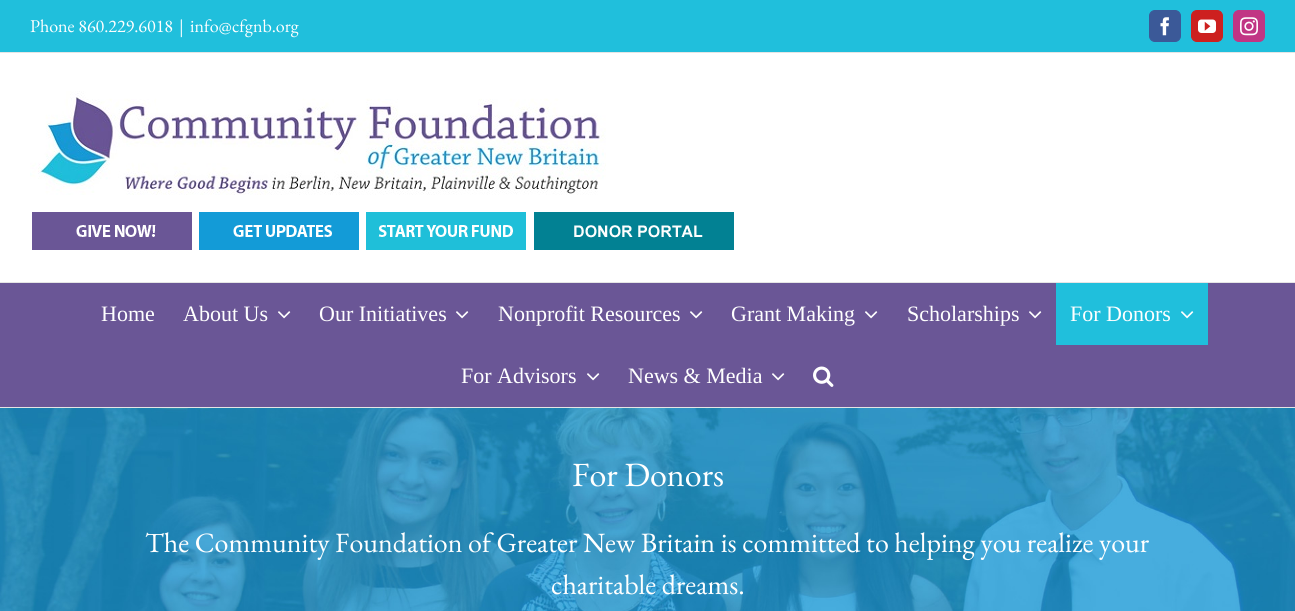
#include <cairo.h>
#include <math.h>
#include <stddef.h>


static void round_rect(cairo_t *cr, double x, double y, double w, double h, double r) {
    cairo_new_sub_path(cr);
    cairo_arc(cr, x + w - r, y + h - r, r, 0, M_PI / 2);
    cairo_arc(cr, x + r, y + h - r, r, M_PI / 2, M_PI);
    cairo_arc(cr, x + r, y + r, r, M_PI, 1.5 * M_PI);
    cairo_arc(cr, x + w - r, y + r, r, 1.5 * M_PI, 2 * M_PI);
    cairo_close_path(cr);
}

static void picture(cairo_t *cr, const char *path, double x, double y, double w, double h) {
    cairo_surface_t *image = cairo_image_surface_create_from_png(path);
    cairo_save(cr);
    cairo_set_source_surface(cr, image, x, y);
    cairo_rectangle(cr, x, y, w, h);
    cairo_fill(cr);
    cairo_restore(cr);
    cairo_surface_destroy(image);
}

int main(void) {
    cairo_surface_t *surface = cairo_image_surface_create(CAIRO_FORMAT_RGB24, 1295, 611);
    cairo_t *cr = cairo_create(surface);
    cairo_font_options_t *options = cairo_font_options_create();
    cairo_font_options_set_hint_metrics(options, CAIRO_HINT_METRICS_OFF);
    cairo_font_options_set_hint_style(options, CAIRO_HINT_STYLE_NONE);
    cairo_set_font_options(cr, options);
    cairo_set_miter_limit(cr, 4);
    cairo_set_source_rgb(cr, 1, 1, 1);
    cairo_paint(cr);
    cairo_set_source_rgb(cr, 0.125, 0.749, 0.863);
    cairo_rectangle(cr, 0, 0, 1295, 52);
    cairo_fill(cr);
    cairo_set_source_rgb(cr, 0.898, 0.898, 0.898);
    cairo_rectangle(cr, 0, 52, 1295, 1);
    cairo_fill(cr);
    cairo_select_font_face(cr, "EB Garamond", CAIRO_FONT_SLANT_NORMAL, CAIRO_FONT_WEIGHT_NORMAL);
    cairo_set_font_size(cr, 18);
    cairo_set_source_rgb(cr, 1, 1, 1);
    cairo_move_to(cr, 30, 32);
    cairo_show_text(cr, "Phone 860.229.6018");
    cairo_move_to(cr, 179, 32);
    cairo_show_text(cr, "|");
    cairo_move_to(cr, 190, 32);
    cairo_show_text(cr, "info@cfgnb.org");
    cairo_set_source_rgb(cr, 0.231, 0.349, 0.596);
    round_rect(cr, 1149.5, 10.5, 31, 31, 5.5);
    cairo_fill_preserve(cr);
    cairo_set_line_width(cr, 1);
    cairo_stroke(cr);
    picture(cr, "img1.png", 1160, 17, 9, 19);
    cairo_set_source_rgb(cr, 0.804, 0.125, 0.122);
    round_rect(cr, 1191.5, 10.5, 31, 31, 5.5);
    cairo_fill_preserve(cr);
    cairo_stroke(cr);
    picture(cr, "img2.png", 1198, 19, 18, 14);
    cairo_set_source_rgb(cr, 0.757, 0.208, 0.518);
    round_rect(cr, 1233.5, 10.5, 31, 31, 5.5);
    cairo_fill_preserve(cr);
    cairo_stroke(cr);
    picture(cr, "img3.png", 1240, 17, 18, 19);
    cairo_set_source_rgb(cr, 0.898, 0.898, 0.898);
    cairo_rectangle(cr, 0, 282, 1295, 1);
    cairo_fill(cr);
    picture(cr, "img4.png", 30, 91, 576, 104);
    picture(cr, "img5.png", 32, 212, 160, 38);
    picture(cr, "img6.png", 199, 212, 160, 38);
    picture(cr, "img7.png", 366, 212, 160, 38);
    picture(cr, "img8.png", 534, 212, 200, 38);
    cairo_set_source_rgb(cr, 0.416, 0.337, 0.588);
    cairo_rectangle(cr, 0, 283, 1295, 124);
    cairo_fill(cr);
    cairo_set_source_rgb(cr, 0.898, 0.898, 0.898);
    cairo_rectangle(cr, 0, 407, 1295, 1);
    cairo_fill(cr);
    cairo_select_font_face(cr, "Liberation Serif", CAIRO_FONT_SLANT_NORMAL, CAIRO_FONT_WEIGHT_NORMAL);
    cairo_set_font_size(cr, 22);
    cairo_set_source_rgb(cr, 1, 1, 1);
    cairo_move_to(cr, 101, 321);
    cairo_show_text(cr, "Home");
    cairo_move_to(cr, 183, 321);
    cairo_show_text(cr, "About Us");
    picture(cr, "img9.png", 278, 311, 13, 8);
    cairo_move_to(cr, 319, 321);
    cairo_show_text(cr, "Our Initiatives");
    picture(cr, "img9.png", 456, 311, 13, 8);
    cairo_move_to(cr, 498, 321);
    cairo_show_text(cr, "Nonprofit Resources");
    picture(cr, "img9.png", 690, 311, 13, 8);
    cairo_move_to(cr, 731, 321);
    cairo_show_text(cr, "Grant Making");
    picture(cr, "img9.png", 865, 311, 13, 8);
    cairo_move_to(cr, 907, 321);
    cairo_show_text(cr, "Scholarships");
    picture(cr, "img9.png", 1029, 311, 13, 8);
    cairo_set_source_rgb(cr, 0.125, 0.749, 0.863);
    cairo_rectangle(cr, 1056, 283, 152, 62);
    cairo_fill(cr);
    cairo_set_source_rgb(cr, 1, 1, 1);
    cairo_move_to(cr, 1070, 321);
    cairo_show_text(cr, "For Donors");
    picture(cr, "img10.png", 1181, 311, 13, 8);
    cairo_move_to(cr, 461, 383);
    cairo_show_text(cr, "For Advisors");
    picture(cr, "img9.png", 587, 373, 13, 8);
    cairo_move_to(cr, 628, 383);
    cairo_show_text(cr, "News & Media");
    picture(cr, "img9.png", 772, 373, 13, 8);
    picture(cr, "img11.png", 813, 366, 21, 21);
    picture(cr, "img12.png", 0, 408, 1295, 203);
    cairo_select_font_face(cr, "EB Garamond", CAIRO_FONT_SLANT_NORMAL, CAIRO_FONT_WEIGHT_NORMAL);
    cairo_set_font_size(cr, 34);
    cairo_move_to(cr, 572, 486);
    cairo_show_text(cr, "For Donors");
    cairo_set_font_size(cr, 28);
    cairo_move_to(cr, 145, 552);
    cairo_show_text(cr, "The Community Foundation of Greater New Britain is committed to helping you realize your");
    cairo_move_to(cr, 551, 594);
    cairo_show_text(cr, "charitable dreams.");
    cairo_surface_write_to_png(surface, "page.png");
    cairo_font_options_destroy(options);
    cairo_destroy(cr);
    cairo_surface_destroy(surface);
    return 0;
}
